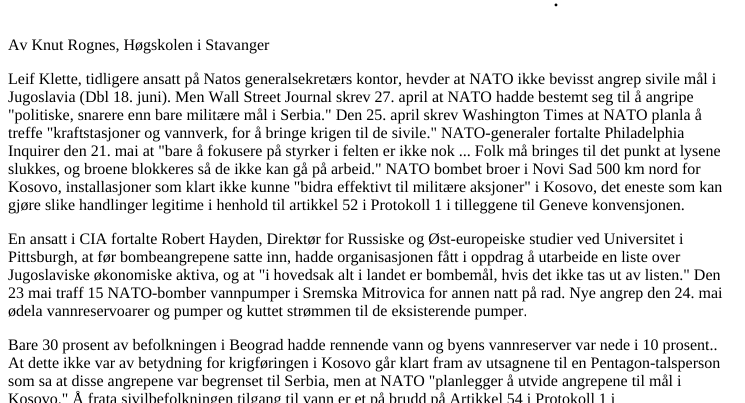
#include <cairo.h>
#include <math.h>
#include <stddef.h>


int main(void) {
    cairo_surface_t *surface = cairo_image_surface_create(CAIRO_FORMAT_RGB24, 745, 403);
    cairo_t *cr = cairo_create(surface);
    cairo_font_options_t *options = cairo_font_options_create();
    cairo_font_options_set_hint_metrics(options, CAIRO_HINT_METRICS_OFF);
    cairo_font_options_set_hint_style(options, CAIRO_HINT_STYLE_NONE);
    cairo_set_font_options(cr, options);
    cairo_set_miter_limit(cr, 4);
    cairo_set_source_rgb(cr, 1, 1, 1);
    cairo_paint(cr);
    cairo_select_font_face(cr, "Liberation Serif", CAIRO_FONT_SLANT_NORMAL, CAIRO_FONT_WEIGHT_NORMAL);
    cairo_set_font_size(cr, 24);
    cairo_set_source_rgb(cr, 0, 0, 0);
    cairo_move_to(cr, 553, 6);
    cairo_show_text(cr, ".");
    cairo_set_font_size(cr, 16);
    cairo_move_to(cr, 8, 50);
    cairo_show_text(cr, "Av Knut Rognes, Høgskolen i Stavanger");
    cairo_move_to(cr, 8, 84);
    cairo_show_text(cr, "Leif Klette, tidligere ansatt på Natos generalsekretærs kontor, hevder at NATO ikke bevisst angrep sivile mål i");
    cairo_move_to(cr, 8, 102);
    cairo_show_text(cr, "Jugoslavia (Dbl 18. juni). Men Wall Street Journal skrev 27. april at NATO hadde bestemt seg til å angripe");
    cairo_move_to(cr, 8, 120);
    cairo_show_text(cr, "\"politiske, snarere enn bare militære mål i Serbia.\" Den 25. april skrev Washington Times at NATO planla å");
    cairo_move_to(cr, 8, 138);
    cairo_show_text(cr, "treffe \"kraftstasjoner og vannverk, for å bringe krigen til de sivile.\" NATO-generaler fortalte Philadelphia");
    cairo_move_to(cr, 8, 156);
    cairo_show_text(cr, "Inquirer den 21. mai at \"bare å fokusere på styrker i felten er ikke nok ... Folk må bringes til det punkt at lysene");
    cairo_move_to(cr, 8, 174);
    cairo_show_text(cr, "slukkes, og broene blokkeres så de ikke kan gå på arbeid.\" NATO bombet broer i Novi Sad 500 km nord for");
    cairo_move_to(cr, 8, 192);
    cairo_show_text(cr, "Kosovo, installasjoner som klart ikke kunne \"bidra effektivt til militære aksjoner\" i Kosovo, det eneste som kan");
    cairo_move_to(cr, 8, 210);
    cairo_show_text(cr, "gjøre slike handlinger legitime i henhold til artikkel 52 i Protokoll 1 i tilleggene til Geneve konvensjonen.");
    cairo_move_to(cr, 8, 244);
    cairo_show_text(cr, "En ansatt i CIA fortalte Robert Hayden, Direktør for Russiske og Øst-europeiske studier ved Universitet i");
    cairo_move_to(cr, 8, 262);
    cairo_show_text(cr, "Pittsburgh, at før bombeangrepene satte inn, hadde organisasjonen fått i oppdrag å utarbeide en liste over");
    cairo_move_to(cr, 8, 280);
    cairo_show_text(cr, "Jugoslaviske økonomiske aktiva, og at \"i hovedsak alt i landet er bombemål, hvis det ikke tas ut av listen.\" Den");
    cairo_move_to(cr, 8, 298);
    cairo_show_text(cr, "23 mai traff 15 NATO-bomber vannpumper i Sremska Mitrovica for annen natt på rad. Nye angrep den 24. mai");
    cairo_move_to(cr, 8, 316);
    cairo_show_text(cr, "ødela vannreservoarer og pumper og kuttet strømmen til de eksisterende pumper.");
    cairo_move_to(cr, 8, 350);
    cairo_show_text(cr, "Bare 30 prosent av befolkningen i Beograd hadde rennende vann og byens vannreserver var nede i 10 prosent..");
    cairo_move_to(cr, 8, 368);
    cairo_show_text(cr, "At dette ikke var av betydning for krigføringen i Kosovo går klart fram av utsagnene til en Pentagon-talsperson");
    cairo_move_to(cr, 8, 386);
    cairo_show_text(cr, "som sa at disse angrepene var begrenset til Serbia, men at NATO \"planlegger å utvide angrepene til mål i");
    cairo_move_to(cr, 8, 404);
    cairo_show_text(cr, "Kosovo.\" Å frata sivilbefolkningen tilgang til vann er et på brudd på Artikkel 54 i Protokoll 1 i");
    cairo_surface_write_to_png(surface, "page.png");
    cairo_font_options_destroy(options);
    cairo_destroy(cr);
    cairo_surface_destroy(surface);
    return 0;
}
